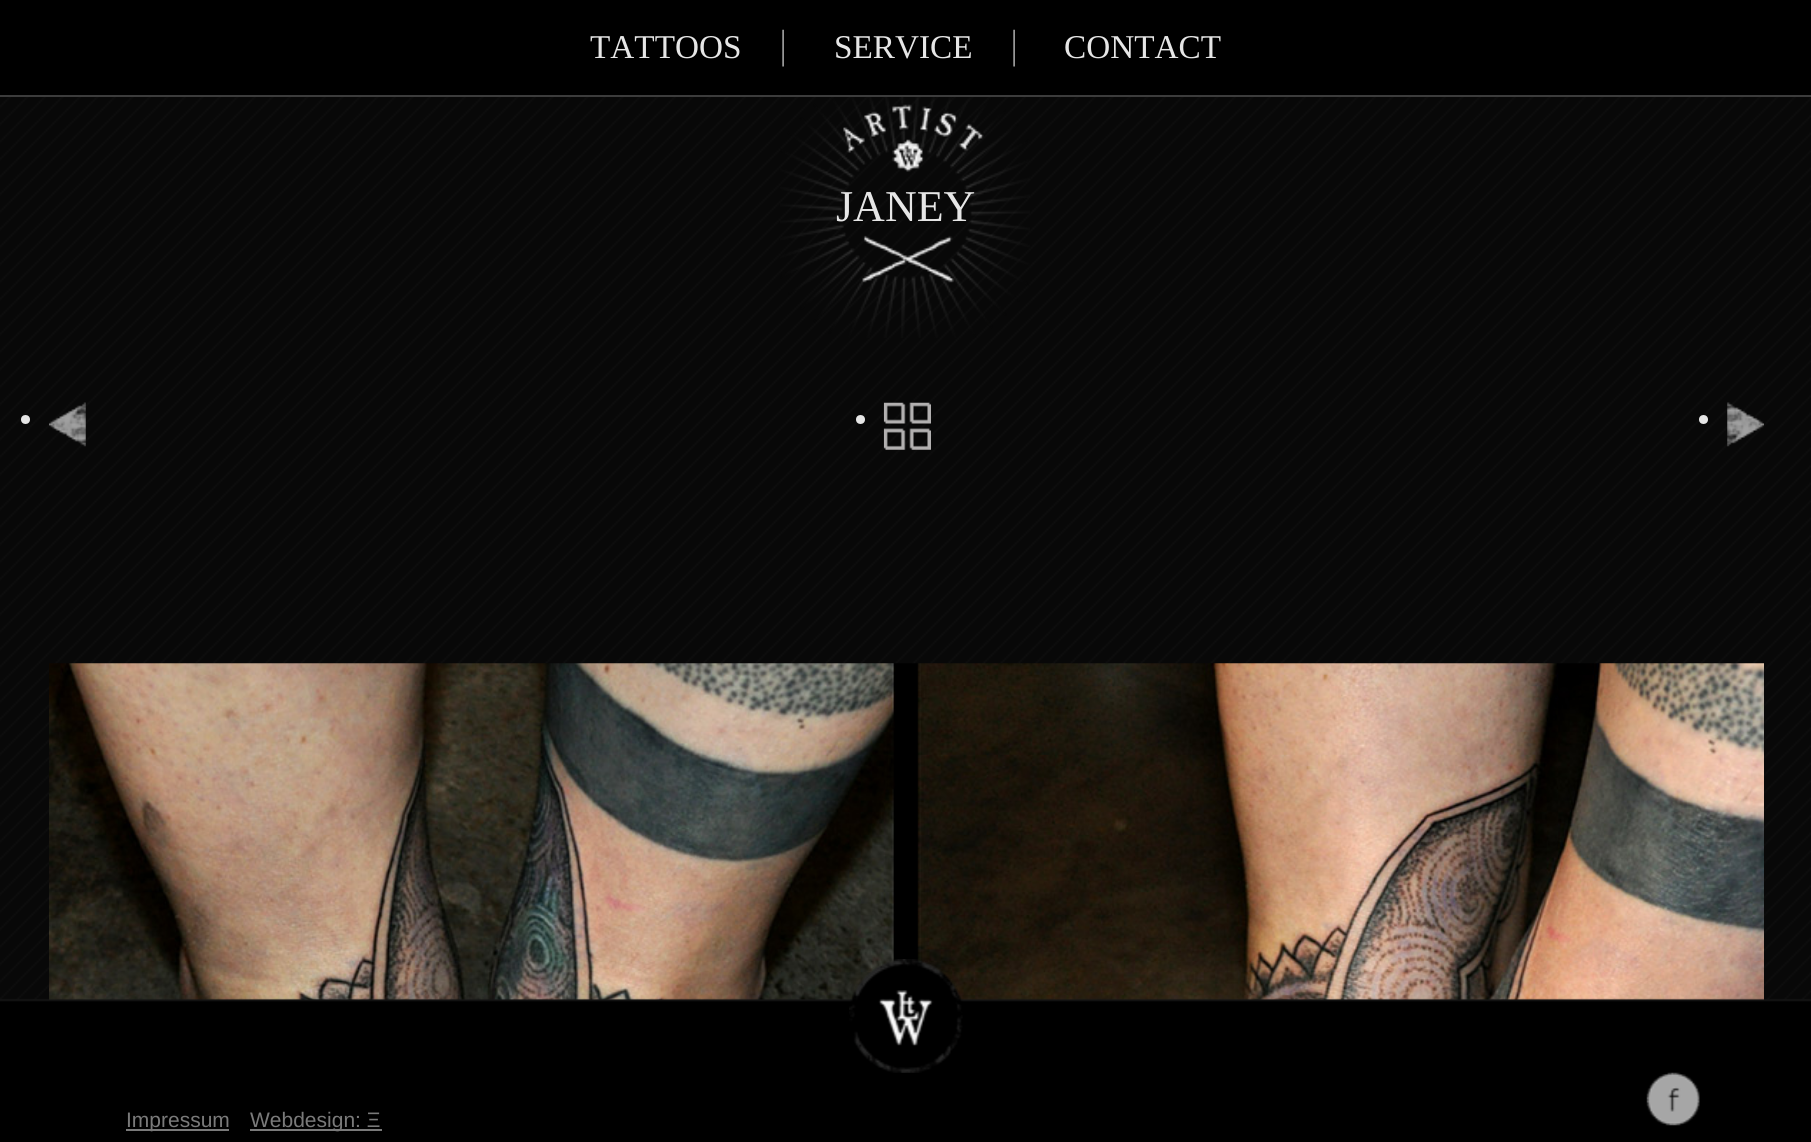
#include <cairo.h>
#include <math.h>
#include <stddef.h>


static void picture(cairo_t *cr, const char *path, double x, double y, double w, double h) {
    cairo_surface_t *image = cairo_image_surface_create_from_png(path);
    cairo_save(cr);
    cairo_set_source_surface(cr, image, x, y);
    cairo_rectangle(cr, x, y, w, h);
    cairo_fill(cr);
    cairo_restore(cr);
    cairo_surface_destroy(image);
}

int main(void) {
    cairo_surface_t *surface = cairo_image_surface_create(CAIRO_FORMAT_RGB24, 1811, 1142);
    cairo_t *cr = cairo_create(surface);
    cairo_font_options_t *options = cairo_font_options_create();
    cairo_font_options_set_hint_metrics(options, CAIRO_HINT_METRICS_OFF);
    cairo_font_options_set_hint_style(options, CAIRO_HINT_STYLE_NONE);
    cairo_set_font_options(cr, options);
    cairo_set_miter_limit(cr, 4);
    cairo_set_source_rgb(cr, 1, 1, 1);
    cairo_paint(cr);
    picture(cr, "img1.png", 0, 97, 1811, 903);
    cairo_set_source_rgb(cr, 0, 0, 0);
    cairo_rectangle(cr, 0, 0, 1811, 95);
    cairo_fill(cr);
    cairo_set_source_rgb(cr, 0.235, 0.235, 0.235);
    cairo_rectangle(cr, 0, 95, 1811, 2);
    cairo_fill(cr);
    picture(cr, "img2.png", 782, 29, 2, 38);
    cairo_select_font_face(cr, "Liberation Serif", CAIRO_FONT_SLANT_NORMAL, CAIRO_FONT_WEIGHT_NORMAL);
    cairo_set_font_size(cr, 33.25);
    cairo_set_source_rgb(cr, 0.902, 0.902, 0.902);
    cairo_move_to(cr, 590, 58);
    cairo_show_text(cr, "TATTOOS");
    picture(cr, "img2.png", 1013, 29, 2, 38);
    cairo_move_to(cr, 834, 58);
    cairo_show_text(cr, "SERVICE");
    cairo_move_to(cr, 1064, 58);
    cairo_show_text(cr, "CONTACT");
    picture(cr, "img3.png", 780, 97, 250, 241);
    cairo_set_font_size(cr, 44);
    cairo_move_to(cr, 836, 221);
    cairo_show_text(cr, "JANEY");
    cairo_new_path(cr);
    cairo_arc(cr, 25.5, 419.5, 4.5, 0, 2 * M_PI);
    cairo_fill(cr);
    picture(cr, "img4.png", 49, 402, 37, 45);
    cairo_arc(cr, 860.5, 419.5, 4.5, 0, 2 * M_PI);
    cairo_fill(cr);
    picture(cr, "img5.png", 883, 402, 48, 48);
    cairo_arc(cr, 1703.5, 419.5, 4.5, 0, 2 * M_PI);
    cairo_fill(cr);
    picture(cr, "img6.png", 1727, 402, 37, 45);
    picture(cr, "img7.png", 49, 663, 1715, 337);
    picture(cr, "img8.png", 0, 998, 1811, 144);
    picture(cr, "img9.png", 849, 959, 114, 114);
    cairo_set_source_rgb(cr, 0.478, 0.478, 0.478);
    cairo_rectangle(cr, 126, 1129, 103, 2);
    cairo_fill(cr);
    cairo_select_font_face(cr, "Liberation Sans", CAIRO_FONT_SLANT_NORMAL, CAIRO_FONT_WEIGHT_NORMAL);
    cairo_set_font_size(cr, 21);
    cairo_move_to(cr, 126, 1127);
    cairo_show_text(cr, "Impressum");
    cairo_rectangle(cr, 250, 1129, 132, 2);
    cairo_fill(cr);
    cairo_move_to(cr, 250, 1127);
    cairo_show_text(cr, "Webdesign: Ξ");
    picture(cr, "img10.png", 1646, 1072, 54, 54);
    cairo_surface_write_to_png(surface, "page.png");
    cairo_font_options_destroy(options);
    cairo_destroy(cr);
    cairo_surface_destroy(surface);
    return 0;
}
